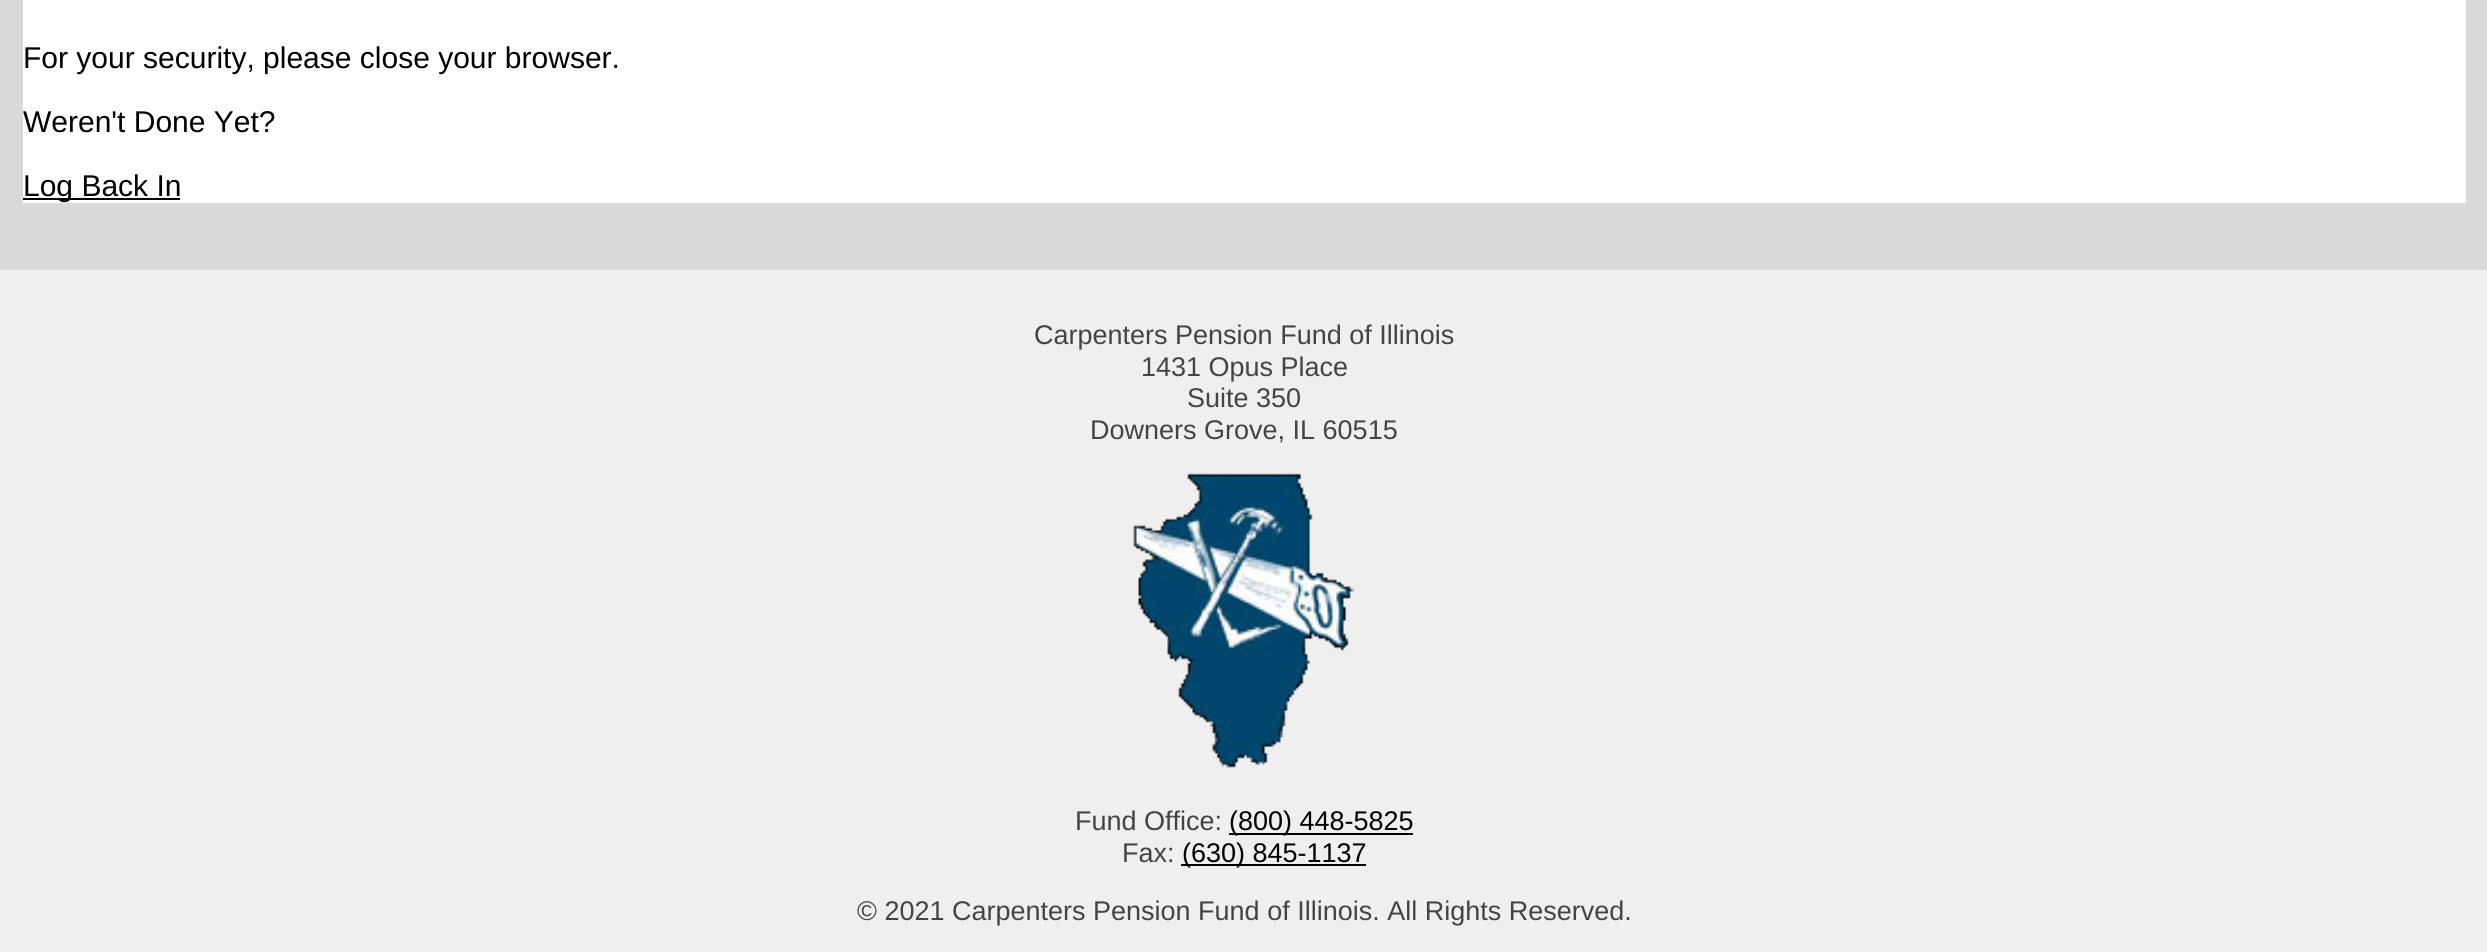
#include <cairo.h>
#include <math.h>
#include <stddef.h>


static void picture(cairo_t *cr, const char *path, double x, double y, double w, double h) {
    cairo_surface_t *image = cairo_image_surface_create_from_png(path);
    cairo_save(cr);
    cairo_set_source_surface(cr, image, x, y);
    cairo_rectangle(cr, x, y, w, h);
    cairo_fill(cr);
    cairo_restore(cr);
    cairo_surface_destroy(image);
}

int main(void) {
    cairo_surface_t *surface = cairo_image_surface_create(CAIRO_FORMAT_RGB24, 2487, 952);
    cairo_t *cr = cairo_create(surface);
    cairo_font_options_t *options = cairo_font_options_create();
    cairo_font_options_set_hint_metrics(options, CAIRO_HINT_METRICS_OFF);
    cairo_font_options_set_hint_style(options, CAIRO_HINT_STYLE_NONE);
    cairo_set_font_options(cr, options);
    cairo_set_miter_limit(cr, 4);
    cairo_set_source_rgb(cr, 0.851, 0.851, 0.851);
    cairo_paint(cr);
    cairo_set_source_rgb(cr, 1, 1, 1);
    cairo_rectangle(cr, 23, 0, 2443, 203);
    cairo_fill(cr);
    cairo_select_font_face(cr, "Liberation Sans", CAIRO_FONT_SLANT_NORMAL, CAIRO_FONT_WEIGHT_NORMAL);
    cairo_set_font_size(cr, 30);
    cairo_set_source_rgb(cr, 0, 0, 0);
    cairo_move_to(cr, 23, 68);
    cairo_show_text(cr, "For your security, please close your browser.");
    cairo_move_to(cr, 23, 132);
    cairo_show_text(cr, "Weren't Done Yet?");
    cairo_rectangle(cr, 23, 198, 157, 2);
    cairo_fill(cr);
    cairo_move_to(cr, 23, 196);
    cairo_show_text(cr, "Log Back In");
    cairo_set_source_rgb(cr, 0.937, 0.937, 0.937);
    cairo_rectangle(cr, 0, 270, 2487, 682);
    cairo_fill(cr);
    cairo_set_font_size(cr, 27);
    cairo_set_source_rgb(cr, 0.267, 0.267, 0.267);
    cairo_move_to(cr, 1034, 344);
    cairo_show_text(cr, "Carpenters Pension Fund of Illinois");
    cairo_move_to(cr, 1141, 376);
    cairo_show_text(cr, "1431 Opus Place");
    cairo_move_to(cr, 1187, 407);
    cairo_show_text(cr, "Suite 350");
    cairo_move_to(cr, 1090, 439);
    cairo_show_text(cr, "Downers Grove, IL 60515");
    picture(cr, "img1.png", 1133, 473, 222, 295);
    cairo_move_to(cr, 1075, 830);
    cairo_show_text(cr, "Fund Office:");
    cairo_set_source_rgb(cr, 0, 0, 0);
    cairo_rectangle(cr, 1229, 833, 184, 2);
    cairo_fill(cr);
    cairo_move_to(cr, 1229, 830);
    cairo_show_text(cr, "(800) 448-5825");
    cairo_set_source_rgb(cr, 0.267, 0.267, 0.267);
    cairo_move_to(cr, 1122, 862);
    cairo_show_text(cr, "Fax:");
    cairo_set_source_rgb(cr, 0, 0, 0);
    cairo_rectangle(cr, 1181, 864, 185, 2);
    cairo_fill(cr);
    cairo_move_to(cr, 1182, 862);
    cairo_show_text(cr, "(630) 845-1137");
    cairo_set_source_rgb(cr, 0.267, 0.267, 0.267);
    cairo_move_to(cr, 857, 920);
    cairo_show_text(cr, "© 2021 Carpenters Pension Fund of Illinois. All Rights Reserved.");
    cairo_surface_write_to_png(surface, "page.png");
    cairo_font_options_destroy(options);
    cairo_destroy(cr);
    cairo_surface_destroy(surface);
    return 0;
}
